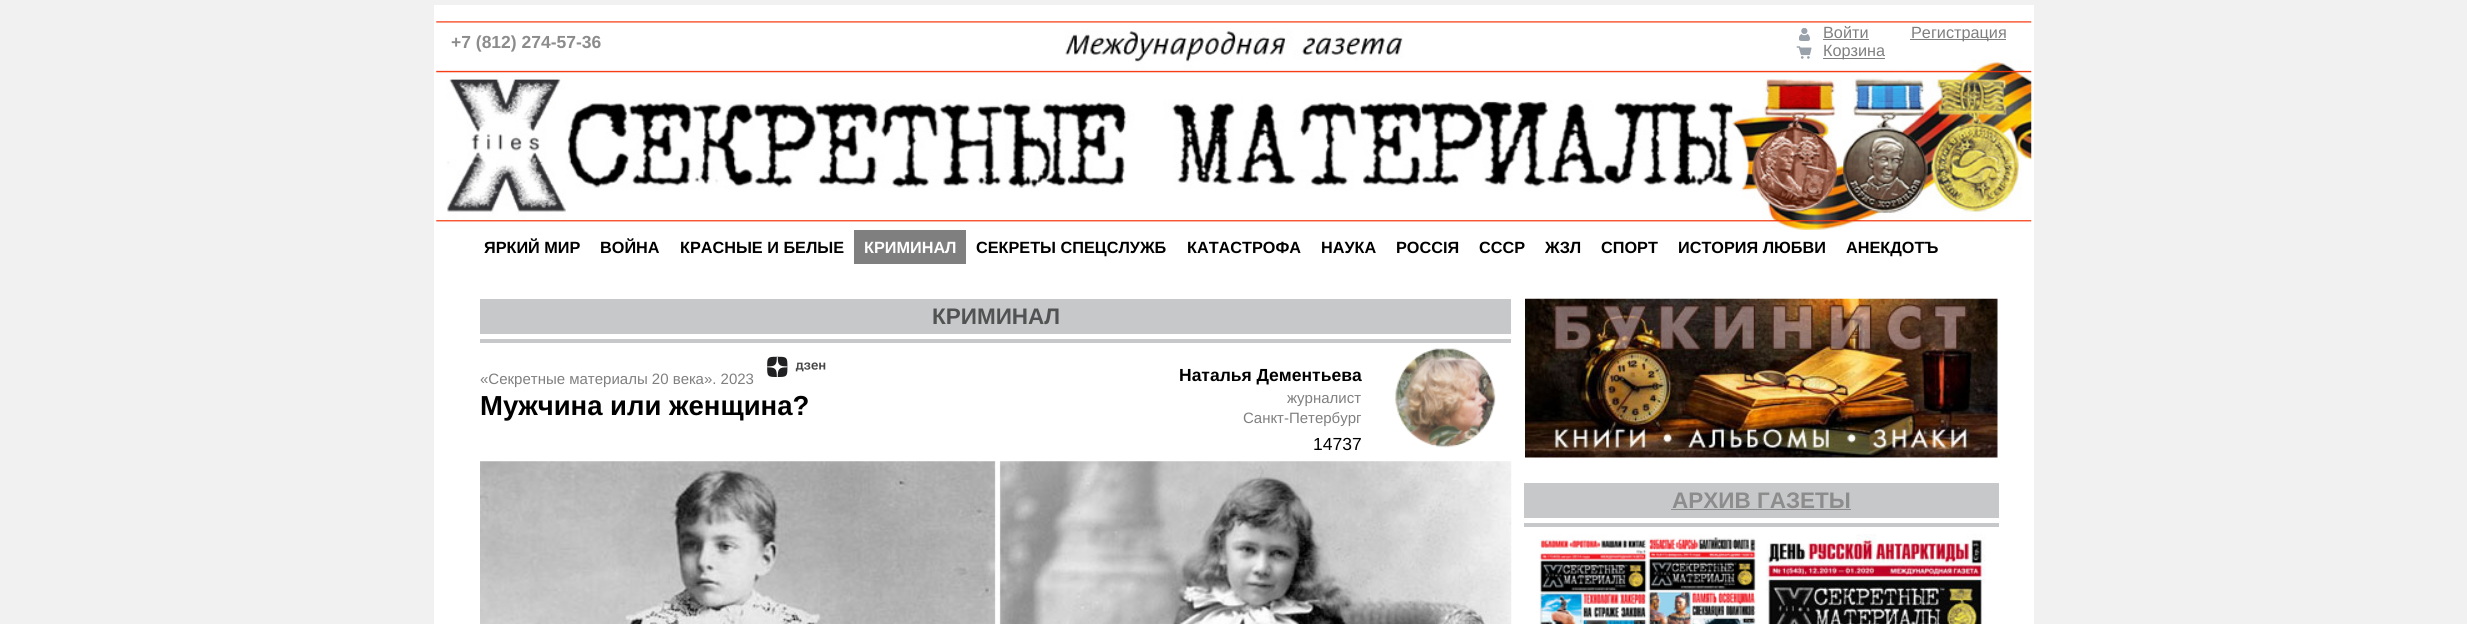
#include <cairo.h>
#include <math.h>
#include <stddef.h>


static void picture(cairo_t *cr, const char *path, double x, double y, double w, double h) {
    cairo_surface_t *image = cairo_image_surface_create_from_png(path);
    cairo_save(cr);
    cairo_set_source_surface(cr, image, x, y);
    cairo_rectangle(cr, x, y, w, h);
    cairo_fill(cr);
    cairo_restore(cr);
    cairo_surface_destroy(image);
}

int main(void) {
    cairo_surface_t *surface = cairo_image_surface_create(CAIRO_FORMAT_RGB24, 2467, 624);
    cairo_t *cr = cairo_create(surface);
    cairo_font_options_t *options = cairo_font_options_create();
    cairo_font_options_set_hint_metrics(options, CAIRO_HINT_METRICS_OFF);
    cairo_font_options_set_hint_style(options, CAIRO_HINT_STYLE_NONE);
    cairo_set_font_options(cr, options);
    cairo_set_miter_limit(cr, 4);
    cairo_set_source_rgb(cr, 0.945, 0.945, 0.945);
    cairo_paint(cr);
    cairo_set_source_rgb(cr, 1, 1, 1);
    cairo_rectangle(cr, 434, 5, 1600, 619);
    cairo_fill(cr);
    picture(cr, "img1.png", 436, 21, 1596, 209);
    cairo_select_font_face(cr, "Liberation Sans", CAIRO_FONT_SLANT_NORMAL, CAIRO_FONT_WEIGHT_BOLD);
    cairo_set_font_size(cr, 17.5);
    cairo_set_source_rgb(cr, 0.549, 0.549, 0.549);
    cairo_move_to(cr, 451, 48);
    cairo_show_text(cr, "+7 (812) 274-57-36");
    picture(cr, "img2.png", 1799, 28, 11, 13);
    cairo_select_font_face(cr, "Liberation Sans", CAIRO_FONT_SLANT_NORMAL, CAIRO_FONT_WEIGHT_NORMAL);
    cairo_set_font_size(cr, 16.25);
    cairo_set_source_rgb(cr, 0.498, 0.498, 0.498);
    cairo_move_to(cr, 1823, 38);
    cairo_show_text(cr, "Войти");
    cairo_rectangle(cr, 1823, 39, 46, 1);
    cairo_fill(cr);
    cairo_rectangle(cr, 1910, 39, 96, 1);
    cairo_fill(cr);
    cairo_move_to(cr, 1911, 38);
    cairo_show_text(cr, "Регистрация");
    picture(cr, "img3.png", 1796, 46, 16, 13);
    cairo_rectangle(cr, 1823, 58, 62, 1);
    cairo_fill(cr);
    cairo_move_to(cr, 1823, 56);
    cairo_show_text(cr, "Корзина");
    cairo_select_font_face(cr, "Liberation Sans", CAIRO_FONT_SLANT_NORMAL, CAIRO_FONT_WEIGHT_BOLD);
    cairo_set_source_rgb(cr, 0, 0, 0);
    cairo_move_to(cr, 484, 253);
    cairo_show_text(cr, "ЯРКИЙ МИР");
    cairo_move_to(cr, 600, 253);
    cairo_show_text(cr, "ВОЙНА");
    cairo_move_to(cr, 680, 253);
    cairo_show_text(cr, "КРАСНЫЕ И БЕЛЫЕ");
    cairo_set_source_rgb(cr, 0.498, 0.498, 0.498);
    cairo_rectangle(cr, 854, 230, 112, 34);
    cairo_fill(cr);
    cairo_set_source_rgb(cr, 1, 1, 1);
    cairo_move_to(cr, 864, 253);
    cairo_show_text(cr, "КРИМИНАЛ");
    cairo_set_source_rgb(cr, 0, 0, 0);
    cairo_move_to(cr, 976, 253);
    cairo_show_text(cr, "СЕКРЕТЫ СПЕЦСЛУЖБ");
    cairo_move_to(cr, 1187, 253);
    cairo_show_text(cr, "КАТАСТРОФА");
    cairo_move_to(cr, 1321, 253);
    cairo_show_text(cr, "НАУКА");
    cairo_move_to(cr, 1396, 253);
    cairo_show_text(cr, "РОССIЯ");
    cairo_move_to(cr, 1479, 253);
    cairo_show_text(cr, "СССР");
    cairo_move_to(cr, 1545, 253);
    cairo_show_text(cr, "ЖЗЛ");
    cairo_move_to(cr, 1601, 253);
    cairo_show_text(cr, "СПОРТ");
    cairo_move_to(cr, 1678, 253);
    cairo_show_text(cr, "ИСТОРИЯ ЛЮБВИ");
    cairo_move_to(cr, 1846, 253);
    cairo_show_text(cr, "АНЕКДОТЪ");
    cairo_set_source_rgb(cr, 0.78, 0.784, 0.792);
    cairo_rectangle(cr, 480, 299, 1031, 35);
    cairo_fill(cr);
    cairo_set_font_size(cr, 22.5);
    cairo_set_source_rgb(cr, 0.318, 0.322, 0.322);
    cairo_move_to(cr, 932, 324);
    cairo_show_text(cr, "КРИМИНАЛ");
    cairo_set_source_rgb(cr, 0.78, 0.784, 0.792);
    cairo_rectangle(cr, 480, 339, 1031, 4);
    cairo_fill(cr);
    picture(cr, "img4.png", 767, 356, 59, 21);
    cairo_select_font_face(cr, "Liberation Sans", CAIRO_FONT_SLANT_NORMAL, CAIRO_FONT_WEIGHT_NORMAL);
    cairo_set_font_size(cr, 15);
    cairo_set_source_rgb(cr, 0.498, 0.498, 0.498);
    cairo_move_to(cr, 480, 384);
    cairo_show_text(cr, "«Секретные материалы 20 века». 2023");
    cairo_select_font_face(cr, "Liberation Sans", CAIRO_FONT_SLANT_NORMAL, CAIRO_FONT_WEIGHT_BOLD);
    cairo_set_font_size(cr, 17.5);
    cairo_set_source_rgb(cr, 0, 0, 0);
    cairo_move_to(cr, 1179, 381);
    cairo_show_text(cr, "Наталья Дементьева");
    picture(cr, "img5.png", 1394, 348, 102, 100);
    cairo_set_font_size(cr, 27.5);
    cairo_move_to(cr, 480, 415);
    cairo_show_text(cr, "Мужчина или женщина?");
    cairo_select_font_face(cr, "Liberation Sans", CAIRO_FONT_SLANT_NORMAL, CAIRO_FONT_WEIGHT_NORMAL);
    cairo_set_font_size(cr, 15);
    cairo_set_source_rgb(cr, 0.498, 0.498, 0.498);
    cairo_move_to(cr, 1287, 403);
    cairo_show_text(cr, "журналист");
    cairo_move_to(cr, 1243, 423);
    cairo_show_text(cr, "Санкт-Петербург");
    cairo_set_font_size(cr, 17.5);
    cairo_set_source_rgb(cr, 0, 0, 0);
    cairo_move_to(cr, 1313, 450);
    cairo_show_text(cr, "14737");
    picture(cr, "img6.png", 480, 461, 1032, 163);
    picture(cr, "img7.png", 1525, 298, 473, 160);
    cairo_set_source_rgb(cr, 0.78, 0.784, 0.792);
    cairo_rectangle(cr, 1524, 483, 475, 35);
    cairo_fill(cr);
    cairo_select_font_face(cr, "Liberation Sans", CAIRO_FONT_SLANT_NORMAL, CAIRO_FONT_WEIGHT_BOLD);
    cairo_set_font_size(cr, 22.5);
    cairo_set_source_rgb(cr, 0.549, 0.549, 0.549);
    cairo_move_to(cr, 1672, 508);
    cairo_show_text(cr, "АРХИВ ГАЗЕТЫ");
    cairo_rectangle(cr, 1671, 509, 180, 1);
    cairo_fill(cr);
    cairo_set_source_rgb(cr, 0.78, 0.784, 0.792);
    cairo_rectangle(cr, 1524, 523, 475, 4);
    cairo_fill(cr);
    picture(cr, "img8.png", 1539, 534, 447, 90);
    cairo_surface_write_to_png(surface, "page.png");
    cairo_font_options_destroy(options);
    cairo_destroy(cr);
    cairo_surface_destroy(surface);
    return 0;
}
